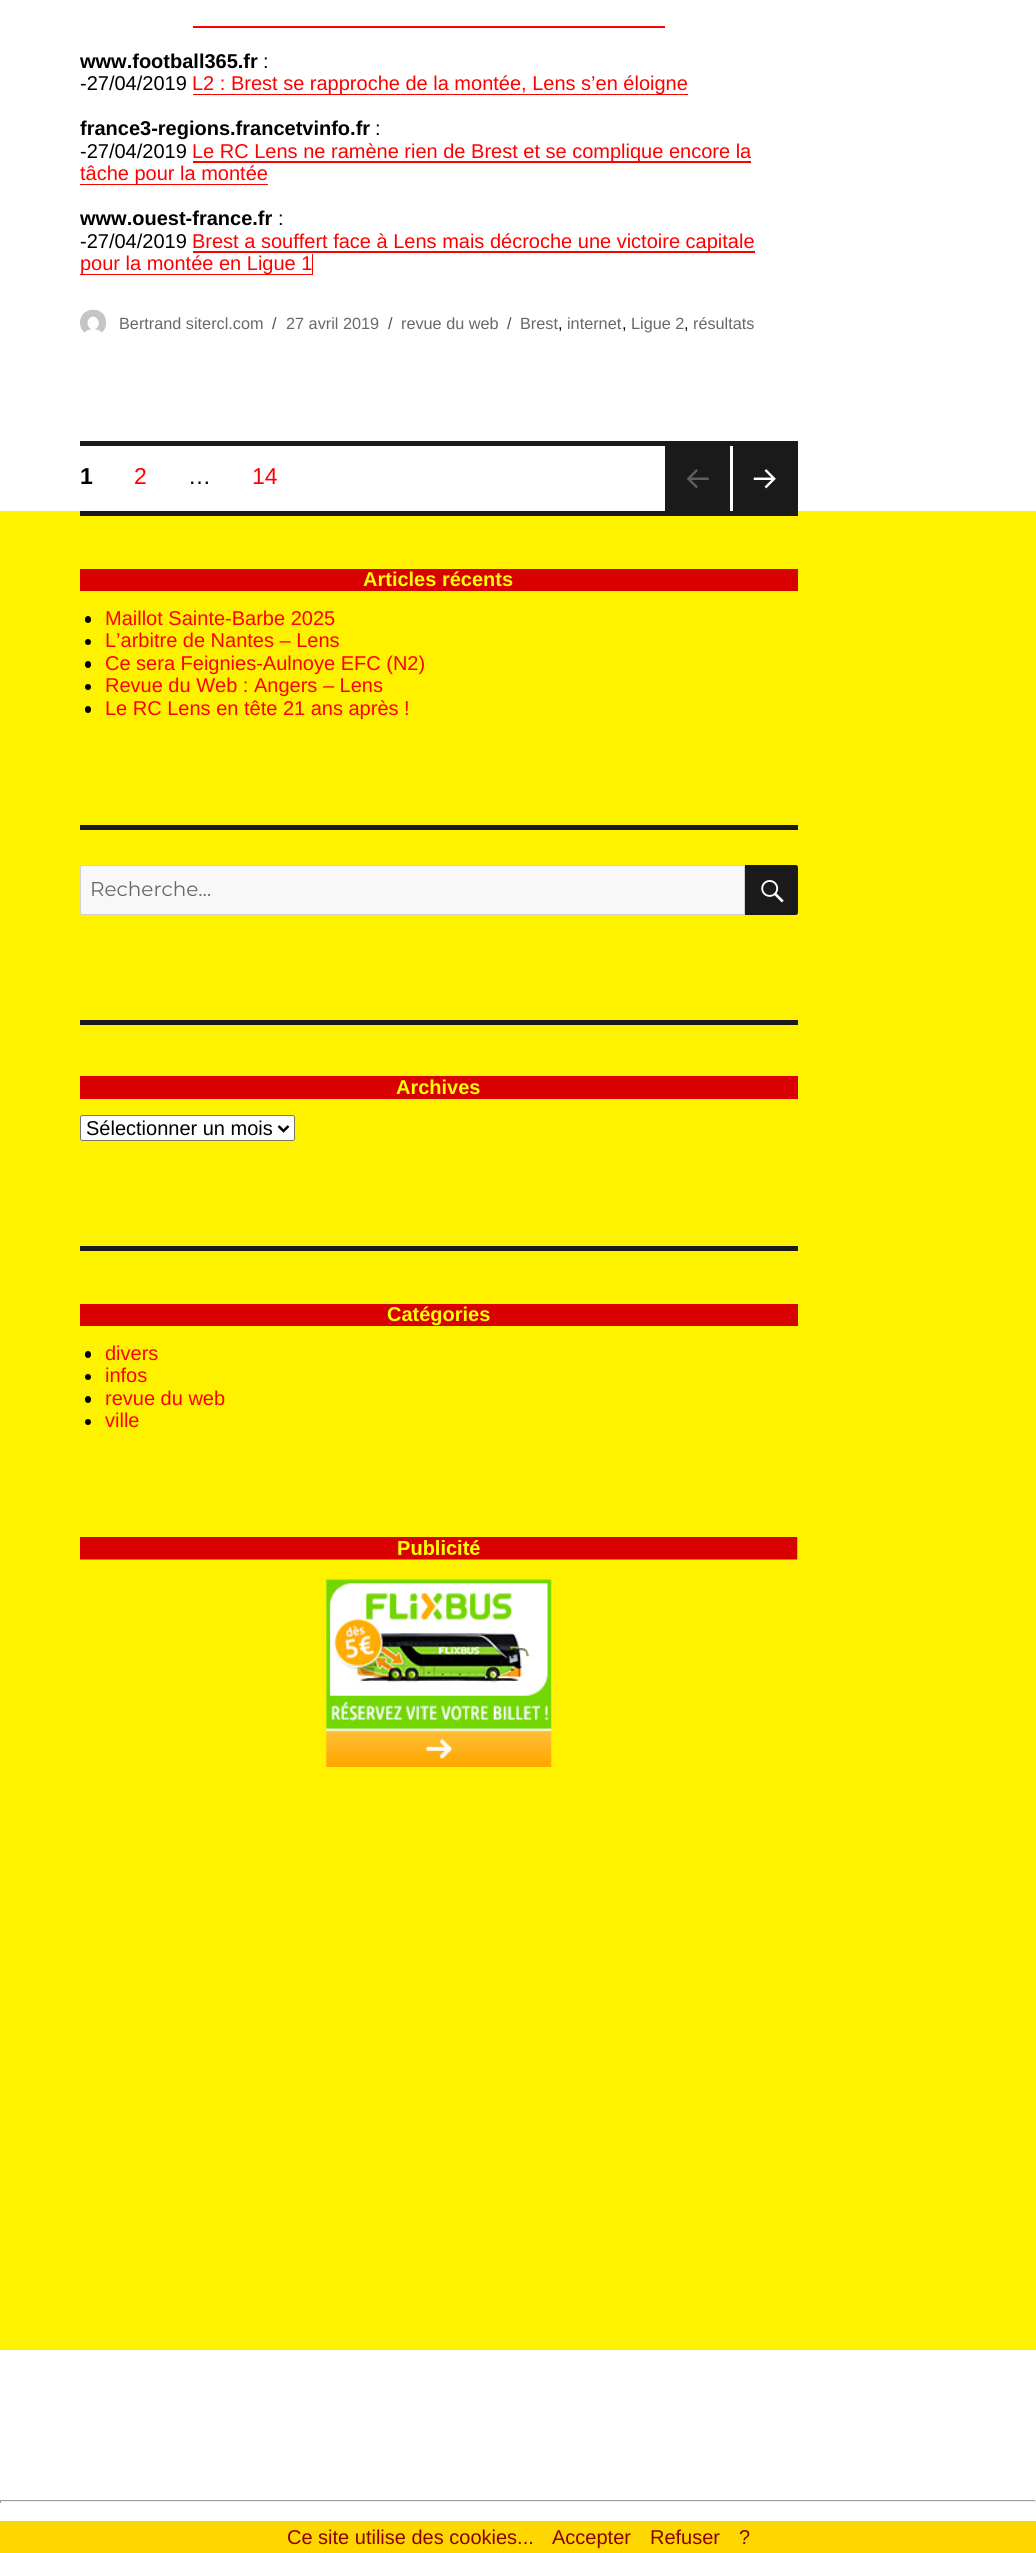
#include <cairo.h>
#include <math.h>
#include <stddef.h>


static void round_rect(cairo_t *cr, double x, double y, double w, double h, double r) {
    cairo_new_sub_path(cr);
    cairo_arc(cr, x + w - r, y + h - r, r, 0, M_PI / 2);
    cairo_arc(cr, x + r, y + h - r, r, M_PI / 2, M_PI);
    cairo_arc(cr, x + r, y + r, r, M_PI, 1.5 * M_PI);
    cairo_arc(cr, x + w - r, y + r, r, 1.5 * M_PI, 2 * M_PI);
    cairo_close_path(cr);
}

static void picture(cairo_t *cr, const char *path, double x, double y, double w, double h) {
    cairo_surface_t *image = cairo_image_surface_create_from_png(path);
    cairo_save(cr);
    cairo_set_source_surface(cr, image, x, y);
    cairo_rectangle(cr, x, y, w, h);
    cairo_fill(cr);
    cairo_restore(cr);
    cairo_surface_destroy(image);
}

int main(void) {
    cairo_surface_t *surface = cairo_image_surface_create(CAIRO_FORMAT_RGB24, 1036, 2553);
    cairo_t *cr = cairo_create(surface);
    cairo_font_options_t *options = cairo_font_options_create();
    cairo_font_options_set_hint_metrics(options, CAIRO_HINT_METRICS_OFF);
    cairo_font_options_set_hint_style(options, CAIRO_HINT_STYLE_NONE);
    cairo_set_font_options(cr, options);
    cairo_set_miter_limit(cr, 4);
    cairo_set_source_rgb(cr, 1, 1, 1);
    cairo_paint(cr);
    cairo_set_source_rgb(cr, 1, 0, 0);
    cairo_rectangle(cr, 193, 26, 472, 2);
    cairo_fill(cr);
    cairo_select_font_face(cr, "Liberation Sans", CAIRO_FONT_SLANT_NORMAL, CAIRO_FONT_WEIGHT_BOLD);
    cairo_set_font_size(cr, 20);
    cairo_set_source_rgb(cr, 0, 0, 0);
    cairo_move_to(cr, 80, 68);
    cairo_show_text(cr, "www.football365.fr");
    cairo_select_font_face(cr, "Liberation Sans", CAIRO_FONT_SLANT_NORMAL, CAIRO_FONT_WEIGHT_NORMAL);
    cairo_move_to(cr, 263, 68);
    cairo_show_text(cr, ":");
    cairo_move_to(cr, 80, 90);
    cairo_show_text(cr, "-27/04/2019");
    cairo_set_source_rgb(cr, 1, 0, 0);
    cairo_new_path(cr);
    cairo_move_to(cr, 193, 94);
    cairo_line_to(cr, 193, 95);
    cairo_line_to(cr, 688, 95);
    cairo_line_to(cr, 688, 74);
    cairo_line_to(cr, 688, 94);
    cairo_close_path(cr);
    cairo_fill(cr);
    cairo_move_to(cr, 192, 90);
    cairo_show_text(cr, "L2 : Brest se rapproche de la montée, Lens s’en éloigne");
    cairo_select_font_face(cr, "Liberation Sans", CAIRO_FONT_SLANT_NORMAL, CAIRO_FONT_WEIGHT_BOLD);
    cairo_set_source_rgb(cr, 0, 0, 0);
    cairo_move_to(cr, 80, 135);
    cairo_show_text(cr, "france3-regions.francetvinfo.fr");
    cairo_select_font_face(cr, "Liberation Sans", CAIRO_FONT_SLANT_NORMAL, CAIRO_FONT_WEIGHT_NORMAL);
    cairo_move_to(cr, 375, 135);
    cairo_show_text(cr, ":");
    cairo_move_to(cr, 80, 158);
    cairo_show_text(cr, "-27/04/2019");
    cairo_set_source_rgb(cr, 1, 0, 0);
    cairo_rectangle(cr, 193, 161, 558, 2);
    cairo_fill(cr);
    cairo_move_to(cr, 192, 158);
    cairo_show_text(cr, "Le RC Lens ne ramène rien de Brest et se complique encore la");
    cairo_new_path(cr);
    cairo_move_to(cr, 80, 184);
    cairo_line_to(cr, 80, 185);
    cairo_line_to(cr, 268, 185);
    cairo_line_to(cr, 268, 164);
    cairo_line_to(cr, 268, 184);
    cairo_close_path(cr);
    cairo_fill(cr);
    cairo_move_to(cr, 80, 180);
    cairo_show_text(cr, "tâche pour la montée");
    cairo_select_font_face(cr, "Liberation Sans", CAIRO_FONT_SLANT_NORMAL, CAIRO_FONT_WEIGHT_BOLD);
    cairo_set_source_rgb(cr, 0, 0, 0);
    cairo_move_to(cr, 80, 225);
    cairo_show_text(cr, "www.ouest-france.fr");
    cairo_select_font_face(cr, "Liberation Sans", CAIRO_FONT_SLANT_NORMAL, CAIRO_FONT_WEIGHT_NORMAL);
    cairo_move_to(cr, 278, 225);
    cairo_show_text(cr, ":");
    cairo_move_to(cr, 80, 248);
    cairo_show_text(cr, "-27/04/2019");
    cairo_set_source_rgb(cr, 1, 0, 0);
    cairo_rectangle(cr, 193, 251, 562, 2);
    cairo_fill(cr);
    cairo_move_to(cr, 192, 248);
    cairo_show_text(cr, "Brest a souffert face à Lens mais décroche une victoire capitale");
    cairo_new_path(cr);
    cairo_move_to(cr, 80, 274);
    cairo_line_to(cr, 80, 275);
    cairo_line_to(cr, 313, 275);
    cairo_line_to(cr, 313, 254);
    cairo_line_to(cr, 312, 254);
    cairo_line_to(cr, 312, 274);
    cairo_close_path(cr);
    cairo_fill(cr);
    cairo_move_to(cr, 80, 270);
    cairo_show_text(cr, "pour la montée en Ligue 1");
    picture(cr, "img1.png", 80, 309, 26, 24);
    cairo_set_font_size(cr, 16.25);
    cairo_set_source_rgb(cr, 0.408, 0.408, 0.408);
    cairo_move_to(cr, 119, 329);
    cairo_show_text(cr, "Bertrand sitercl.com");
    cairo_set_source_rgb(cr, 0.302, 0.302, 0.302);
    cairo_move_to(cr, 272, 329);
    cairo_show_text(cr, "/");
    cairo_set_source_rgb(cr, 0.408, 0.408, 0.408);
    cairo_move_to(cr, 286, 329);
    cairo_show_text(cr, "27 avril 2019");
    cairo_set_source_rgb(cr, 0.302, 0.302, 0.302);
    cairo_move_to(cr, 388, 329);
    cairo_show_text(cr, "/");
    cairo_set_source_rgb(cr, 0.408, 0.408, 0.408);
    cairo_move_to(cr, 401, 329);
    cairo_show_text(cr, "revue du web");
    cairo_set_source_rgb(cr, 0.302, 0.302, 0.302);
    cairo_move_to(cr, 507, 329);
    cairo_show_text(cr, "/");
    cairo_set_source_rgb(cr, 0.408, 0.408, 0.408);
    cairo_move_to(cr, 520, 329);
    cairo_show_text(cr, "Brest");
    cairo_set_source_rgb(cr, 0, 0, 0);
    cairo_move_to(cr, 558, 329);
    cairo_show_text(cr, ",");
    cairo_set_source_rgb(cr, 0.408, 0.408, 0.408);
    cairo_move_to(cr, 567, 329);
    cairo_show_text(cr, "internet");
    cairo_set_source_rgb(cr, 0, 0, 0);
    cairo_move_to(cr, 622, 329);
    cairo_show_text(cr, ",");
    cairo_set_source_rgb(cr, 0.408, 0.408, 0.408);
    cairo_move_to(cr, 631, 329);
    cairo_show_text(cr, "Ligue 2");
    cairo_set_source_rgb(cr, 0, 0, 0);
    cairo_move_to(cr, 684, 329);
    cairo_show_text(cr, ",");
    cairo_set_source_rgb(cr, 0.408, 0.408, 0.408);
    cairo_move_to(cr, 693, 329);
    cairo_show_text(cr, "résultats");
    cairo_set_source_rgb(cr, 0.102, 0.102, 0.102);
    cairo_rectangle(cr, 80, 441, 718, 5);
    cairo_fill(cr);
    cairo_select_font_face(cr, "Liberation Sans", CAIRO_FONT_SLANT_NORMAL, CAIRO_FONT_WEIGHT_BOLD);
    cairo_set_font_size(cr, 23);
    cairo_set_source_rgb(cr, 0, 0, 0);
    cairo_move_to(cr, 80, 484);
    cairo_show_text(cr, "1");
    cairo_select_font_face(cr, "Liberation Sans", CAIRO_FONT_SLANT_NORMAL, CAIRO_FONT_WEIGHT_NORMAL);
    cairo_set_source_rgb(cr, 1, 0, 0);
    cairo_move_to(cr, 134, 484);
    cairo_show_text(cr, "2");
    cairo_set_source_rgb(cr, 0, 0, 0);
    cairo_move_to(cr, 188, 484);
    cairo_show_text(cr, "…");
    cairo_set_source_rgb(cr, 1, 0, 0);
    cairo_move_to(cr, 252, 484);
    cairo_show_text(cr, "14");
    cairo_set_source_rgb(cr, 0.102, 0.102, 0.102);
    cairo_rectangle(cr, 665, 446, 65, 65);
    cairo_fill(cr);
    picture(cr, "img2.png", 686, 469, 23, 20);
    cairo_rectangle(cr, 733, 446, 65, 65);
    cairo_fill(cr);
    picture(cr, "img3.png", 753, 469, 23, 20);
    cairo_set_source_rgb(cr, 1, 0.949, 0);
    cairo_rectangle(cr, 0, 511, 1036, 1839);
    cairo_fill(cr);
    cairo_set_source_rgb(cr, 0.102, 0.102, 0.102);
    cairo_rectangle(cr, 80, 511, 718, 5);
    cairo_fill(cr);
    cairo_set_source_rgb(cr, 0.851, 0, 0);
    cairo_rectangle(cr, 80, 569, 718, 22);
    cairo_fill(cr);
    cairo_select_font_face(cr, "Liberation Sans", CAIRO_FONT_SLANT_NORMAL, CAIRO_FONT_WEIGHT_BOLD);
    cairo_set_font_size(cr, 20);
    cairo_set_source_rgb(cr, 1, 1, 0);
    cairo_move_to(cr, 363, 586);
    cairo_show_text(cr, "Articles récents");
    cairo_set_source_rgb(cr, 0, 0, 0);
    round_rect(cr, 85, 616, 6, 7, 3);
    cairo_fill(cr);
    cairo_select_font_face(cr, "Liberation Sans", CAIRO_FONT_SLANT_NORMAL, CAIRO_FONT_WEIGHT_NORMAL);
    cairo_set_source_rgb(cr, 1, 0, 0);
    cairo_move_to(cr, 105, 625);
    cairo_show_text(cr, "Maillot Sainte-Barbe 2025");
    cairo_set_source_rgb(cr, 0, 0, 0);
    cairo_new_path(cr);
    cairo_arc(cr, 88, 642, 3, 0, 2 * M_PI);
    cairo_fill(cr);
    cairo_set_source_rgb(cr, 1, 0, 0);
    cairo_move_to(cr, 105, 647);
    cairo_show_text(cr, "L’arbitre de Nantes – Lens");
    cairo_set_source_rgb(cr, 0, 0, 0);
    round_rect(cr, 85, 661, 6, 7, 3);
    cairo_fill(cr);
    cairo_set_source_rgb(cr, 1, 0, 0);
    cairo_move_to(cr, 105, 670);
    cairo_show_text(cr, "Ce sera Feignies-Aulnoye EFC (N2)");
    cairo_set_source_rgb(cr, 0, 0, 0);
    cairo_new_path(cr);
    cairo_arc(cr, 88, 687, 3, 0, 2 * M_PI);
    cairo_fill(cr);
    cairo_set_source_rgb(cr, 1, 0, 0);
    cairo_move_to(cr, 105, 692);
    cairo_show_text(cr, "Revue du Web : Angers – Lens");
    cairo_set_source_rgb(cr, 0, 0, 0);
    round_rect(cr, 85, 706, 6, 7, 3);
    cairo_fill(cr);
    cairo_set_source_rgb(cr, 1, 0, 0);
    cairo_move_to(cr, 105, 715);
    cairo_show_text(cr, "Le RC Lens en tête 21 ans après !");
    cairo_set_source_rgb(cr, 0.102, 0.102, 0.102);
    cairo_rectangle(cr, 80, 825, 718, 5);
    cairo_fill(cr);
    cairo_set_source_rgb(cr, 0.969, 0.969, 0.969);
    cairo_new_path(cr);
    cairo_move_to(cr, 82.5, 865.5);
    cairo_line_to(cr, 744.5, 865.5);
    cairo_line_to(cr, 744.5, 914.5);
    cairo_line_to(cr, 82.5, 914.5);
    cairo_curve_to(cr, 81.5, 914.5, 80.5, 913.5, 80.5, 912.5);
    cairo_line_to(cr, 80.5, 867.5);
    cairo_curve_to(cr, 80.5, 866.5, 81.5, 865.5, 82.5, 865.5);
    cairo_close_path(cr);
    cairo_fill_preserve(cr);
    cairo_set_source_rgb(cr, 0.82, 0.82, 0.82);
    cairo_set_line_width(cr, 1);
    cairo_stroke(cr);
    cairo_select_font_face(cr, "Montserrat", CAIRO_FONT_SLANT_NORMAL, CAIRO_FONT_WEIGHT_NORMAL);
    cairo_set_source_rgb(cr, 0.408, 0.408, 0.408);
    cairo_move_to(cr, 90, 896);
    cairo_show_text(cr, "Recherche…");
    cairo_set_source_rgb(cr, 0.102, 0.102, 0.102);
    cairo_new_path(cr);
    cairo_move_to(cr, 745, 865);
    cairo_line_to(cr, 795.5, 865);
    cairo_curve_to(cr, 797, 865, 798, 866, 798, 867.5);
    cairo_line_to(cr, 798, 912.5);
    cairo_curve_to(cr, 798, 914, 797, 915, 795.5, 915);
    cairo_line_to(cr, 745, 915);
    cairo_close_path(cr);
    cairo_fill(cr);
    picture(cr, "img4.png", 761, 880, 23, 23);
    cairo_rectangle(cr, 80, 1020, 718, 5);
    cairo_fill(cr);
    cairo_set_source_rgb(cr, 0.851, 0, 0);
    cairo_rectangle(cr, 80, 1076, 718, 23);
    cairo_fill(cr);
    cairo_select_font_face(cr, "Liberation Sans", CAIRO_FONT_SLANT_NORMAL, CAIRO_FONT_WEIGHT_BOLD);
    cairo_set_source_rgb(cr, 1, 1, 0);
    cairo_move_to(cr, 396, 1094);
    cairo_show_text(cr, "Archives");
    cairo_set_source_rgb(cr, 1, 1, 1);
    round_rect(cr, 80.5, 1115.5, 214, 25, 2);
    cairo_fill_preserve(cr);
    cairo_set_source_rgb(cr, 0.463, 0.463, 0.463);
    cairo_stroke(cr);
    cairo_new_path(cr);
    cairo_move_to(cr, 278.5, 1126);
    cairo_line_to(cr, 283.5, 1131);
    cairo_line_to(cr, 288.5, 1126);
    cairo_set_source_rgb(cr, 0, 0, 0);
    cairo_set_line_width(cr, 2.5);
    cairo_stroke(cr);
    cairo_select_font_face(cr, "Liberation Sans", CAIRO_FONT_SLANT_NORMAL, CAIRO_FONT_WEIGHT_NORMAL);
    cairo_move_to(cr, 86, 1135);
    cairo_show_text(cr, "Sélectionner un mois");
    cairo_set_source_rgb(cr, 0.102, 0.102, 0.102);
    cairo_rectangle(cr, 80, 1246, 718, 5);
    cairo_fill(cr);
    cairo_set_source_rgb(cr, 0.851, 0, 0);
    cairo_rectangle(cr, 80, 1304, 718, 22);
    cairo_fill(cr);
    cairo_select_font_face(cr, "Liberation Sans", CAIRO_FONT_SLANT_NORMAL, CAIRO_FONT_WEIGHT_BOLD);
    cairo_set_source_rgb(cr, 1, 1, 0);
    cairo_move_to(cr, 387, 1321);
    cairo_show_text(cr, "Catégories");
    cairo_set_source_rgb(cr, 0, 0, 0);
    round_rect(cr, 85, 1351, 6, 7, 3);
    cairo_fill(cr);
    cairo_select_font_face(cr, "Liberation Sans", CAIRO_FONT_SLANT_NORMAL, CAIRO_FONT_WEIGHT_NORMAL);
    cairo_set_source_rgb(cr, 1, 0, 0);
    cairo_move_to(cr, 105, 1360);
    cairo_show_text(cr, "divers");
    cairo_set_source_rgb(cr, 0, 0, 0);
    cairo_new_path(cr);
    cairo_arc(cr, 88, 1377, 3, 0, 2 * M_PI);
    cairo_fill(cr);
    cairo_set_source_rgb(cr, 1, 0, 0);
    cairo_move_to(cr, 105, 1382);
    cairo_show_text(cr, "infos");
    cairo_set_source_rgb(cr, 0, 0, 0);
    round_rect(cr, 85, 1396, 6, 7, 3);
    cairo_fill(cr);
    cairo_set_source_rgb(cr, 1, 0, 0);
    cairo_move_to(cr, 105, 1405);
    cairo_show_text(cr, "revue du web");
    cairo_set_source_rgb(cr, 0, 0, 0);
    cairo_new_path(cr);
    cairo_arc(cr, 88, 1422, 3, 0, 2 * M_PI);
    cairo_fill(cr);
    cairo_set_source_rgb(cr, 1, 0, 0);
    cairo_move_to(cr, 105, 1427);
    cairo_show_text(cr, "ville");
    picture(cr, "img5.png", 80, 1537, 718, 230);
    cairo_set_source_rgb(cr, 0.624, 0.624, 0.624);
    cairo_rectangle(cr, 0, 2500, 1036, 1);
    cairo_fill(cr);
    cairo_set_source_rgb(cr, 0.933, 0.933, 0.933);
    cairo_rectangle(cr, 1035, 2500, 1, 3);
    cairo_fill(cr);
    cairo_rectangle(cr, 0, 2501, 1036, 1);
    cairo_fill(cr);
    cairo_set_source_rgb(cr, 0.624, 0.624, 0.624);
    cairo_rectangle(cr, 0, 2500, 1, 3);
    cairo_fill(cr);
    cairo_set_source_rgb(cr, 1, 0.843, 0);
    cairo_rectangle(cr, 0, 2521, 1036, 32);
    cairo_fill(cr);
    cairo_set_source_rgb(cr, 0.545, 0, 0);
    cairo_move_to(cr, 287, 2544);
    cairo_show_text(cr, "Ce site utilise des cookies...");
    cairo_move_to(cr, 552, 2544);
    cairo_show_text(cr, "Accepter");
    cairo_move_to(cr, 650, 2544);
    cairo_show_text(cr, "Refuser");
    cairo_move_to(cr, 739, 2544);
    cairo_show_text(cr, "?");
    cairo_surface_write_to_png(surface, "page.png");
    cairo_font_options_destroy(options);
    cairo_destroy(cr);
    cairo_surface_destroy(surface);
    return 0;
}
